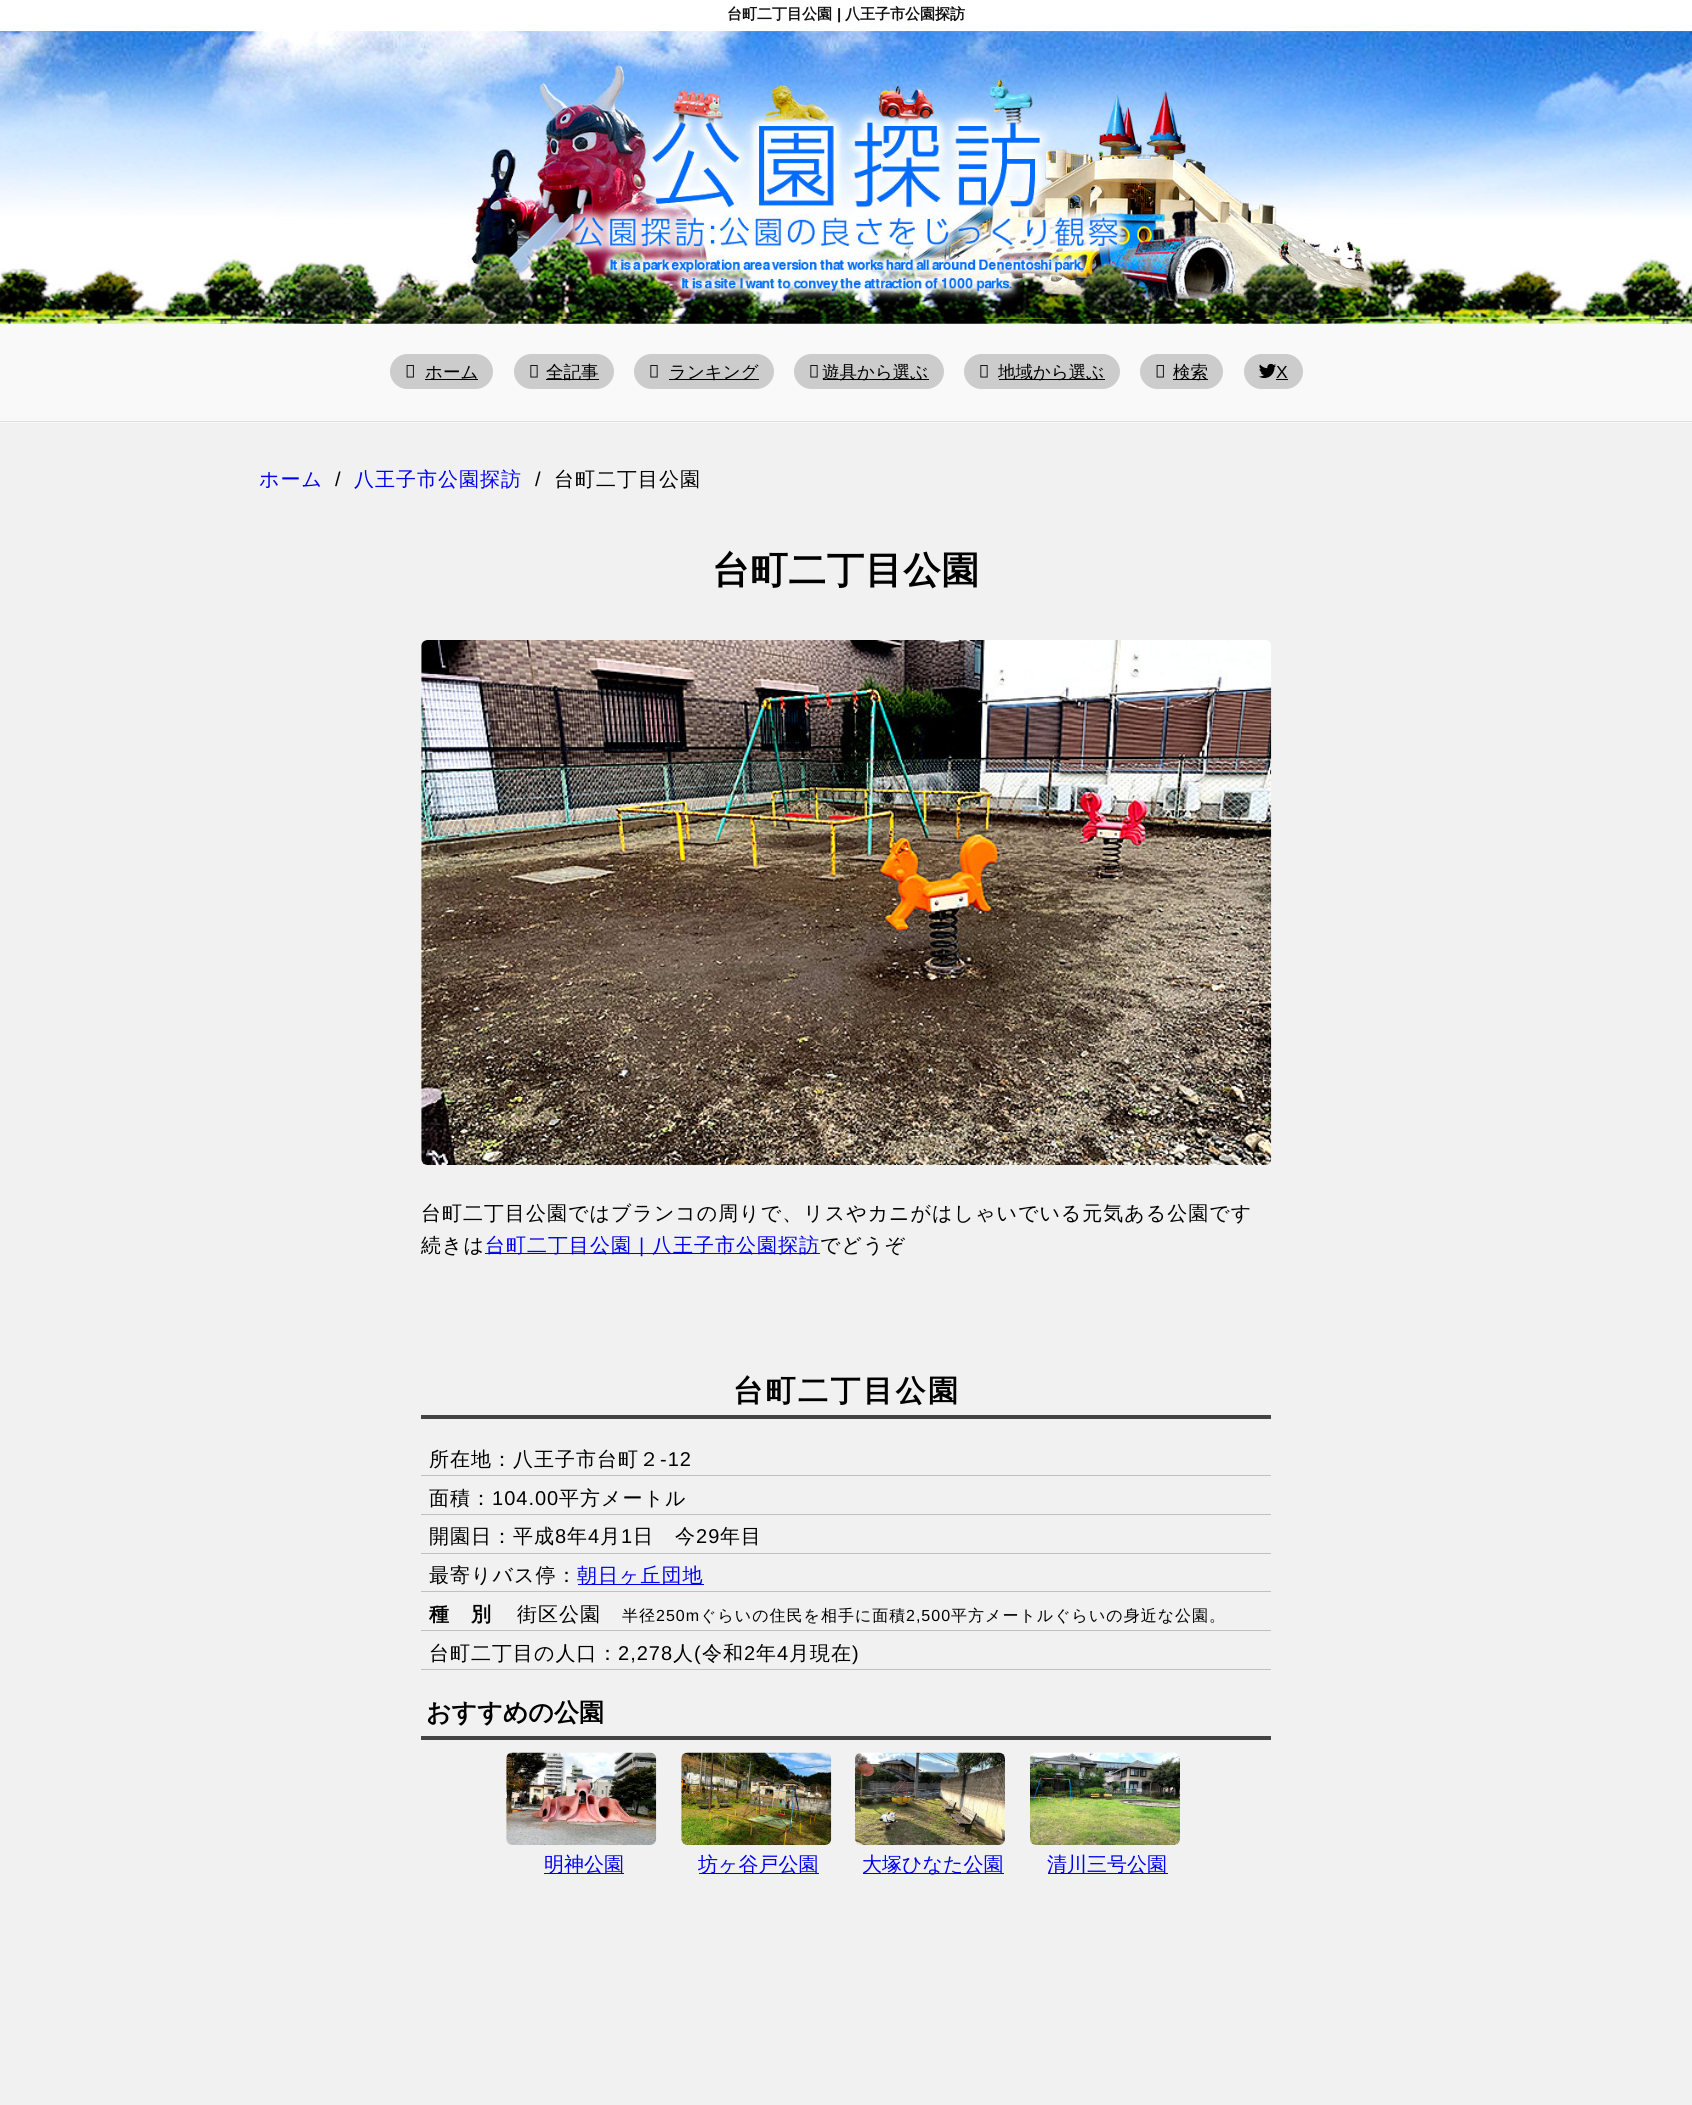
#include <cairo.h>
#include <math.h>
#include <stddef.h>


static void spaced_text(cairo_t *cr, double x, double y, const char *s, double letter, double word) {
    cairo_move_to(cr, x, y);
    while (*s) {
        char ch[5] = {0};
        int n = 0;
        do ch[n++] = *s++; while ((*s & 0xC0) == 0x80);
        cairo_show_text(cr, ch);
        cairo_rel_move_to(cr, letter + word * (*ch == ' '), 0);
    }
}

static void round_rect(cairo_t *cr, double x, double y, double w, double h, double r) {
    cairo_new_sub_path(cr);
    cairo_arc(cr, x + w - r, y + h - r, r, 0, M_PI / 2);
    cairo_arc(cr, x + r, y + h - r, r, M_PI / 2, M_PI);
    cairo_arc(cr, x + r, y + r, r, M_PI, 1.5 * M_PI);
    cairo_arc(cr, x + w - r, y + r, r, 1.5 * M_PI, 2 * M_PI);
    cairo_close_path(cr);
}

static void picture(cairo_t *cr, const char *path, double x, double y, double w, double h) {
    cairo_surface_t *image = cairo_image_surface_create_from_png(path);
    cairo_save(cr);
    cairo_set_source_surface(cr, image, x, y);
    cairo_rectangle(cr, x, y, w, h);
    cairo_fill(cr);
    cairo_restore(cr);
    cairo_surface_destroy(image);
}

int main(void) {
    cairo_surface_t *surface = cairo_image_surface_create(CAIRO_FORMAT_RGB24, 1692, 2105);
    cairo_t *cr = cairo_create(surface);
    cairo_font_options_t *options = cairo_font_options_create();
    cairo_font_options_set_hint_metrics(options, CAIRO_HINT_METRICS_OFF);
    cairo_font_options_set_hint_style(options, CAIRO_HINT_STYLE_NONE);
    cairo_set_font_options(cr, options);
    cairo_set_miter_limit(cr, 4);
    cairo_set_source_rgb(cr, 1, 1, 1);
    cairo_paint(cr);
    cairo_select_font_face(cr, "WenQuanYi Zen Hei", CAIRO_FONT_SLANT_NORMAL, CAIRO_FONT_WEIGHT_BOLD);
    cairo_set_font_size(cr, 15);
    cairo_set_source_rgb(cr, 0.067, 0.067, 0.067);
    cairo_move_to(cr, 727, 19);
    cairo_show_text(cr, "台町二丁目公園");
    cairo_select_font_face(cr, "Liberation Sans", CAIRO_FONT_SLANT_NORMAL, CAIRO_FONT_WEIGHT_BOLD);
    cairo_move_to(cr, 837, 19);
    cairo_show_text(cr, "|");
    cairo_select_font_face(cr, "WenQuanYi Zen Hei", CAIRO_FONT_SLANT_NORMAL, CAIRO_FONT_WEIGHT_BOLD);
    cairo_move_to(cr, 845, 19);
    cairo_show_text(cr, "八王子市公園探訪");
    cairo_set_source_rgb(cr, 0.976, 0.976, 0.976);
    cairo_rectangle(cr, 0, 323, 1692, 100);
    cairo_fill(cr);
    picture(cr, "img1.png", 0, 31, 1692, 293);
    picture(cr, "img2.png", 0, 31, 1692, 288);
    cairo_set_source_rgb(cr, 0.867, 0.867, 0.867);
    cairo_rectangle(cr, 0, 421, 1692, 1);
    cairo_fill(cr);
    cairo_set_source_rgb(cr, 0.8, 0.8, 0.8);
    round_rect(cr, 390, 354, 103, 35, 17.5);
    cairo_fill(cr);
    picture(cr, "img3.png", 406, 365, 8, 13);
    cairo_set_source_rgb(cr, 0, 0, 0);
    cairo_rectangle(cr, 425, 379, 53, 1);
    cairo_fill(cr);
    cairo_select_font_face(cr, "WenQuanYi Zen Hei Medium", CAIRO_FONT_SLANT_NORMAL, CAIRO_FONT_WEIGHT_NORMAL);
    cairo_set_font_size(cr, 17.5);
    cairo_move_to(cr, 425, 378);
    cairo_show_text(cr, "ホーム");
    cairo_set_source_rgb(cr, 0.8, 0.8, 0.8);
    round_rect(cr, 514, 354, 100, 35, 17.5);
    cairo_fill(cr);
    picture(cr, "img4.png", 530, 365, 8, 13);
    cairo_set_source_rgb(cr, 0, 0, 0);
    cairo_rectangle(cr, 546, 379, 53, 1);
    cairo_fill(cr);
    cairo_move_to(cr, 546, 378);
    cairo_show_text(cr, "全記事");
    cairo_set_source_rgb(cr, 0.8, 0.8, 0.8);
    round_rect(cr, 634, 354, 140, 35, 17.5);
    cairo_fill(cr);
    picture(cr, "img4.png", 650, 365, 8, 13);
    cairo_set_source_rgb(cr, 0, 0, 0);
    cairo_rectangle(cr, 669, 379, 90, 1);
    cairo_fill(cr);
    cairo_move_to(cr, 669, 378);
    cairo_show_text(cr, "ランキング");
    cairo_set_source_rgb(cr, 0.8, 0.8, 0.8);
    round_rect(cr, 794, 354, 150, 35, 17.5);
    cairo_fill(cr);
    picture(cr, "img4.png", 810, 365, 8, 13);
    cairo_set_source_rgb(cr, 0, 0, 0);
    cairo_rectangle(cr, 823, 379, 106, 1);
    cairo_fill(cr);
    cairo_move_to(cr, 822, 378);
    cairo_show_text(cr, "遊具から選ぶ");
    cairo_set_source_rgb(cr, 0.8, 0.8, 0.8);
    round_rect(cr, 964, 354, 156, 35, 17.5);
    cairo_fill(cr);
    picture(cr, "img4.png", 980, 365, 8, 13);
    cairo_set_source_rgb(cr, 0, 0, 0);
    cairo_rectangle(cr, 999, 379, 106, 1);
    cairo_fill(cr);
    cairo_move_to(cr, 998, 378);
    cairo_show_text(cr, "地域から選ぶ");
    cairo_set_source_rgb(cr, 0.8, 0.8, 0.8);
    round_rect(cr, 1140, 354, 83, 35, 17.5);
    cairo_fill(cr);
    picture(cr, "img3.png", 1156, 365, 8, 13);
    cairo_set_source_rgb(cr, 0, 0, 0);
    cairo_rectangle(cr, 1173, 379, 35, 1);
    cairo_fill(cr);
    cairo_move_to(cr, 1173, 378);
    cairo_show_text(cr, "検索");
    cairo_set_source_rgb(cr, 0.8, 0.8, 0.8);
    round_rect(cr, 1244, 354, 59, 35, 17.5);
    cairo_fill(cr);
    picture(cr, "img5.png", 1259, 363, 18, 16);
    cairo_select_font_face(cr, "Liberation Sans", CAIRO_FONT_SLANT_NORMAL, CAIRO_FONT_WEIGHT_NORMAL);
    cairo_set_source_rgb(cr, 0, 0, 0);
    cairo_move_to(cr, 1276, 378);
    cairo_show_text(cr, "X");
    cairo_rectangle(cr, 1276, 379, 12, 1);
    cairo_fill(cr);
    cairo_set_source_rgb(cr, 0.945, 0.945, 0.945);
    cairo_rectangle(cr, 0, 423, 1692, 1682);
    cairo_fill(cr);
    cairo_select_font_face(cr, "WenQuanYi Zen Hei Medium", CAIRO_FONT_SLANT_NORMAL, CAIRO_FONT_WEIGHT_NORMAL);
    cairo_set_font_size(cr, 20);
    cairo_set_source_rgb(cr, 0, 0, 0.933);
    spaced_text(cr, 259, 486, "ホーム", 1, 0);
    cairo_select_font_face(cr, "Liberation Sans", CAIRO_FONT_SLANT_NORMAL, CAIRO_FONT_WEIGHT_NORMAL);
    cairo_set_source_rgb(cr, 0, 0, 0);
    spaced_text(cr, 335, 486, "/", 1, 0);
    cairo_select_font_face(cr, "WenQuanYi Zen Hei Medium", CAIRO_FONT_SLANT_NORMAL, CAIRO_FONT_WEIGHT_NORMAL);
    cairo_set_source_rgb(cr, 0, 0, 0.933);
    spaced_text(cr, 354, 486, "八王子市公園探訪", 1, 0);
    cairo_select_font_face(cr, "Liberation Sans", CAIRO_FONT_SLANT_NORMAL, CAIRO_FONT_WEIGHT_NORMAL);
    cairo_set_source_rgb(cr, 0, 0, 0);
    spaced_text(cr, 535, 486, "/", 1, 0);
    cairo_select_font_face(cr, "WenQuanYi Zen Hei Medium", CAIRO_FONT_SLANT_NORMAL, CAIRO_FONT_WEIGHT_NORMAL);
    spaced_text(cr, 554, 486, "台町二丁目公園", 1, 0);
    cairo_select_font_face(cr, "WenQuanYi Zen Hei", CAIRO_FONT_SLANT_NORMAL, CAIRO_FONT_WEIGHT_BOLD);
    cairo_set_font_size(cr, 37.5);
    spaced_text(cr, 712, 583, "台町二丁目公園", 0.75, 0);
    picture(cr, "img6.png", 421, 640, 851, 525);
    cairo_select_font_face(cr, "WenQuanYi Zen Hei Medium", CAIRO_FONT_SLANT_NORMAL, CAIRO_FONT_WEIGHT_NORMAL);
    cairo_set_font_size(cr, 20);
    spaced_text(cr, 421, 1220, "台町二丁目公園ではブランコの周りで、リスやカニがはしゃいでいる元気ある公園です", 1, 0);
    spaced_text(cr, 421, 1252, "続きは", 1, 0);
    cairo_set_source_rgb(cr, 0, 0, 0.933);
    cairo_rectangle(cr, 485, 1253, 335, 1);
    cairo_fill(cr);
    spaced_text(cr, 485, 1252, "台町二丁目公園", 1, 0);
    cairo_select_font_face(cr, "Liberation Sans", CAIRO_FONT_SLANT_NORMAL, CAIRO_FONT_WEIGHT_NORMAL);
    spaced_text(cr, 639, 1252, "|", 1, 0);
    cairo_select_font_face(cr, "WenQuanYi Zen Hei Medium", CAIRO_FONT_SLANT_NORMAL, CAIRO_FONT_WEIGHT_NORMAL);
    spaced_text(cr, 652, 1252, "八王子市公園探訪", 1, 0);
    cairo_set_source_rgb(cr, 0, 0, 0);
    spaced_text(cr, 820, 1252, "でどうぞ", 1, 0);
    cairo_set_source_rgb(cr, 0.267, 0.267, 0.267);
    cairo_rectangle(cr, 421, 1415, 850, 4);
    cairo_fill(cr);
    cairo_select_font_face(cr, "WenQuanYi Zen Hei", CAIRO_FONT_SLANT_NORMAL, CAIRO_FONT_WEIGHT_BOLD);
    cairo_set_font_size(cr, 30);
    cairo_set_source_rgb(cr, 0, 0, 0);
    spaced_text(cr, 733, 1401, "台町二丁目公園", 2.5, 0);
    cairo_set_source_rgb(cr, 0.753, 0.753, 0.753);
    cairo_rectangle(cr, 421, 1475, 850, 1);
    cairo_fill(cr);
    cairo_select_font_face(cr, "WenQuanYi Zen Hei Medium", CAIRO_FONT_SLANT_NORMAL, CAIRO_FONT_WEIGHT_NORMAL);
    cairo_set_font_size(cr, 20);
    cairo_set_source_rgb(cr, 0, 0, 0);
    spaced_text(cr, 429, 1466, "所在地：八王子市台町２", 1, 0);
    cairo_select_font_face(cr, "Liberation Sans", CAIRO_FONT_SLANT_NORMAL, CAIRO_FONT_WEIGHT_NORMAL);
    spaced_text(cr, 660, 1466, "-12", 1, 0);
    cairo_set_source_rgb(cr, 0.753, 0.753, 0.753);
    cairo_rectangle(cr, 421, 1514, 850, 1);
    cairo_fill(cr);
    cairo_select_font_face(cr, "WenQuanYi Zen Hei Medium", CAIRO_FONT_SLANT_NORMAL, CAIRO_FONT_WEIGHT_NORMAL);
    cairo_set_source_rgb(cr, 0, 0, 0);
    spaced_text(cr, 429, 1505, "面積：", 1, 0);
    cairo_select_font_face(cr, "Liberation Sans", CAIRO_FONT_SLANT_NORMAL, CAIRO_FONT_WEIGHT_NORMAL);
    spaced_text(cr, 492, 1505, "104.00", 1, 0);
    cairo_select_font_face(cr, "WenQuanYi Zen Hei Medium", CAIRO_FONT_SLANT_NORMAL, CAIRO_FONT_WEIGHT_NORMAL);
    spaced_text(cr, 559, 1505, "平方メートル", 1, 0);
    cairo_set_source_rgb(cr, 0.753, 0.753, 0.753);
    cairo_rectangle(cr, 421, 1553, 850, 1);
    cairo_fill(cr);
    cairo_set_source_rgb(cr, 0, 0, 0);
    spaced_text(cr, 429, 1543, "開園日：平成", 1, 0);
    cairo_select_font_face(cr, "Liberation Sans", CAIRO_FONT_SLANT_NORMAL, CAIRO_FONT_WEIGHT_NORMAL);
    spaced_text(cr, 555, 1543, "8", 1, 0);
    cairo_select_font_face(cr, "WenQuanYi Zen Hei Medium", CAIRO_FONT_SLANT_NORMAL, CAIRO_FONT_WEIGHT_NORMAL);
    spaced_text(cr, 567, 1543, "年", 1, 0);
    cairo_select_font_face(cr, "Liberation Sans", CAIRO_FONT_SLANT_NORMAL, CAIRO_FONT_WEIGHT_NORMAL);
    spaced_text(cr, 588, 1543, "4", 1, 0);
    cairo_select_font_face(cr, "WenQuanYi Zen Hei Medium", CAIRO_FONT_SLANT_NORMAL, CAIRO_FONT_WEIGHT_NORMAL);
    spaced_text(cr, 600, 1543, "月", 1, 0);
    cairo_select_font_face(cr, "Liberation Sans", CAIRO_FONT_SLANT_NORMAL, CAIRO_FONT_WEIGHT_NORMAL);
    spaced_text(cr, 621, 1543, "1", 1, 0);
    cairo_select_font_face(cr, "WenQuanYi Zen Hei Medium", CAIRO_FONT_SLANT_NORMAL, CAIRO_FONT_WEIGHT_NORMAL);
    spaced_text(cr, 633, 1543, "日　今", 1, 0);
    cairo_select_font_face(cr, "Liberation Sans", CAIRO_FONT_SLANT_NORMAL, CAIRO_FONT_WEIGHT_NORMAL);
    spaced_text(cr, 696, 1543, "29", 1, 0);
    cairo_select_font_face(cr, "WenQuanYi Zen Hei Medium", CAIRO_FONT_SLANT_NORMAL, CAIRO_FONT_WEIGHT_NORMAL);
    spaced_text(cr, 720, 1543, "年目", 1, 0);
    cairo_set_source_rgb(cr, 0.753, 0.753, 0.753);
    cairo_rectangle(cr, 421, 1591, 850, 1);
    cairo_fill(cr);
    cairo_set_source_rgb(cr, 0, 0, 0);
    spaced_text(cr, 429, 1582, "最寄りバス停：", 1, 0);
    cairo_set_source_rgb(cr, 0, 0, 0.933);
    cairo_rectangle(cr, 578, 1584, 126, 1);
    cairo_fill(cr);
    spaced_text(cr, 577, 1582, "朝日ヶ丘団地", 1, 0);
    cairo_set_source_rgb(cr, 0.753, 0.753, 0.753);
    cairo_rectangle(cr, 421, 1630, 850, 1);
    cairo_fill(cr);
    cairo_select_font_face(cr, "WenQuanYi Zen Hei", CAIRO_FONT_SLANT_NORMAL, CAIRO_FONT_WEIGHT_BOLD);
    cairo_set_source_rgb(cr, 0, 0, 0);
    spaced_text(cr, 429, 1621, "種　別", 1, 0);
    cairo_select_font_face(cr, "WenQuanYi Zen Hei Medium", CAIRO_FONT_SLANT_NORMAL, CAIRO_FONT_WEIGHT_NORMAL);
    spaced_text(cr, 517, 1621, "街区公園", 1, 0);
    cairo_set_font_size(cr, 16);
    spaced_text(cr, 622, 1621, "半径", 1, 0);
    cairo_select_font_face(cr, "Liberation Sans", CAIRO_FONT_SLANT_NORMAL, CAIRO_FONT_WEIGHT_NORMAL);
    spaced_text(cr, 656, 1621, "250m", 1, 0);
    cairo_select_font_face(cr, "WenQuanYi Zen Hei Medium", CAIRO_FONT_SLANT_NORMAL, CAIRO_FONT_WEIGHT_NORMAL);
    spaced_text(cr, 700, 1621, "ぐらいの住民を相手に面積", 1, 0);
    cairo_select_font_face(cr, "Liberation Sans", CAIRO_FONT_SLANT_NORMAL, CAIRO_FONT_WEIGHT_NORMAL);
    spaced_text(cr, 906, 1621, "2,500", 1, 0);
    cairo_select_font_face(cr, "WenQuanYi Zen Hei Medium", CAIRO_FONT_SLANT_NORMAL, CAIRO_FONT_WEIGHT_NORMAL);
    spaced_text(cr, 951, 1621, "平方メートルぐらいの身近な公園。", 1, 0);
    cairo_set_source_rgb(cr, 0.753, 0.753, 0.753);
    cairo_rectangle(cr, 421, 1669, 850, 1);
    cairo_fill(cr);
    cairo_set_font_size(cr, 20);
    cairo_set_source_rgb(cr, 0, 0, 0);
    spaced_text(cr, 429, 1660, "台町二丁目の人口：", 1, 0);
    cairo_select_font_face(cr, "Liberation Sans", CAIRO_FONT_SLANT_NORMAL, CAIRO_FONT_WEIGHT_NORMAL);
    spaced_text(cr, 618, 1660, "2,278", 1, 0);
    cairo_select_font_face(cr, "WenQuanYi Zen Hei Medium", CAIRO_FONT_SLANT_NORMAL, CAIRO_FONT_WEIGHT_NORMAL);
    spaced_text(cr, 673, 1660, "人", 1, 0);
    cairo_select_font_face(cr, "Liberation Sans", CAIRO_FONT_SLANT_NORMAL, CAIRO_FONT_WEIGHT_NORMAL);
    spaced_text(cr, 694, 1660, "(", 1, 0);
    cairo_select_font_face(cr, "WenQuanYi Zen Hei Medium", CAIRO_FONT_SLANT_NORMAL, CAIRO_FONT_WEIGHT_NORMAL);
    spaced_text(cr, 702, 1660, "令和", 1, 0);
    cairo_select_font_face(cr, "Liberation Sans", CAIRO_FONT_SLANT_NORMAL, CAIRO_FONT_WEIGHT_NORMAL);
    spaced_text(cr, 744, 1660, "2", 1, 0);
    cairo_select_font_face(cr, "WenQuanYi Zen Hei Medium", CAIRO_FONT_SLANT_NORMAL, CAIRO_FONT_WEIGHT_NORMAL);
    spaced_text(cr, 756, 1660, "年", 1, 0);
    cairo_select_font_face(cr, "Liberation Sans", CAIRO_FONT_SLANT_NORMAL, CAIRO_FONT_WEIGHT_NORMAL);
    spaced_text(cr, 777, 1660, "4", 1, 0);
    cairo_select_font_face(cr, "WenQuanYi Zen Hei Medium", CAIRO_FONT_SLANT_NORMAL, CAIRO_FONT_WEIGHT_NORMAL);
    spaced_text(cr, 789, 1660, "月現在", 1, 0);
    cairo_select_font_face(cr, "Liberation Sans", CAIRO_FONT_SLANT_NORMAL, CAIRO_FONT_WEIGHT_NORMAL);
    spaced_text(cr, 852, 1660, ")", 1, 0);
    cairo_set_source_rgb(cr, 0.267, 0.267, 0.267);
    cairo_rectangle(cr, 421, 1736, 850, 4);
    cairo_fill(cr);
    cairo_select_font_face(cr, "WenQuanYi Zen Hei", CAIRO_FONT_SLANT_NORMAL, CAIRO_FONT_WEIGHT_BOLD);
    cairo_set_font_size(cr, 25);
    cairo_set_source_rgb(cr, 0, 0, 0);
    cairo_move_to(cr, 426, 1721);
    cairo_show_text(cr, "おすすめの公園");
    picture(cr, "img7.png", 506, 1752, 151, 93);
    cairo_set_source_rgb(cr, 0, 0, 0.933);
    cairo_rectangle(cr, 544, 1873, 80, 1);
    cairo_fill(cr);
    cairo_select_font_face(cr, "WenQuanYi Zen Hei Medium", CAIRO_FONT_SLANT_NORMAL, CAIRO_FONT_WEIGHT_NORMAL);
    cairo_set_font_size(cr, 20);
    cairo_move_to(cr, 544, 1871);
    cairo_show_text(cr, "明神公園");
    picture(cr, "img8.png", 681, 1752, 151, 93);
    cairo_rectangle(cr, 699, 1873, 120, 1);
    cairo_fill(cr);
    cairo_move_to(cr, 698, 1871);
    cairo_show_text(cr, "坊ヶ谷戸公園");
    picture(cr, "img9.png", 855, 1752, 150, 93);
    cairo_rectangle(cr, 863, 1873, 141, 1);
    cairo_fill(cr);
    cairo_move_to(cr, 862, 1871);
    cairo_show_text(cr, "大塚ひなた公園");
    picture(cr, "img10.png", 1030, 1752, 150, 93);
    cairo_rectangle(cr, 1048, 1873, 120, 1);
    cairo_fill(cr);
    cairo_move_to(cr, 1047, 1871);
    cairo_show_text(cr, "清川三号公園");
    cairo_surface_write_to_png(surface, "page.png");
    cairo_font_options_destroy(options);
    cairo_destroy(cr);
    cairo_surface_destroy(surface);
    return 0;
}
